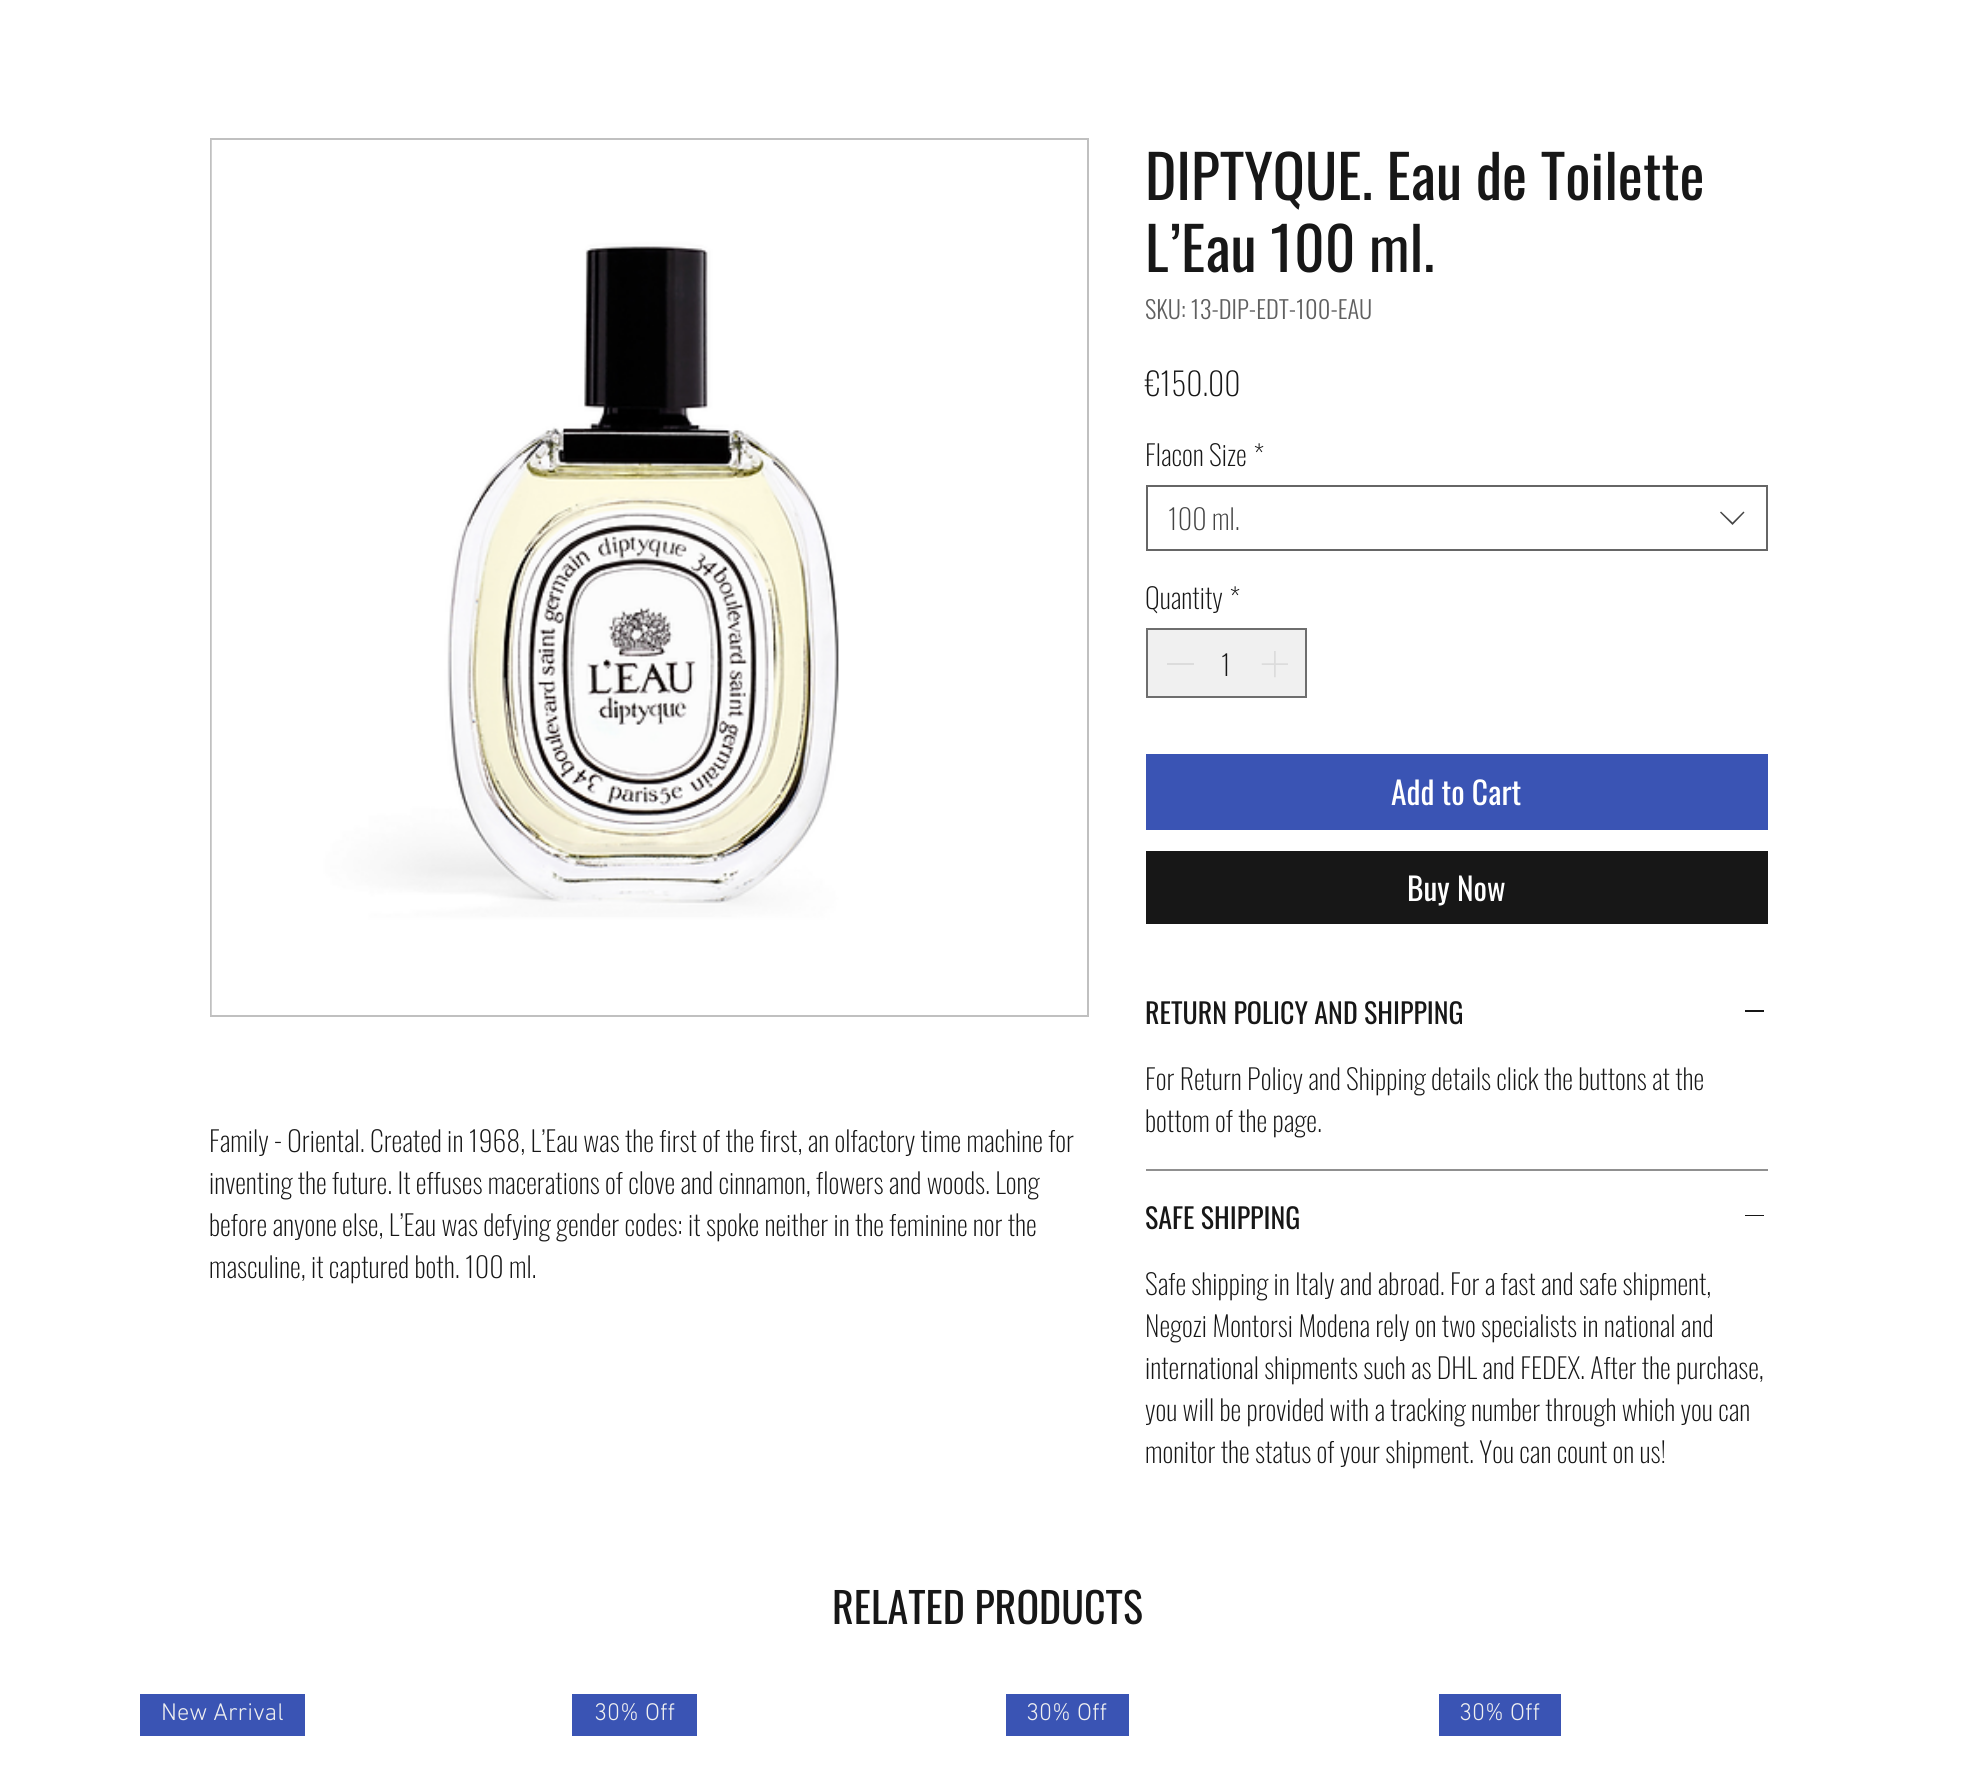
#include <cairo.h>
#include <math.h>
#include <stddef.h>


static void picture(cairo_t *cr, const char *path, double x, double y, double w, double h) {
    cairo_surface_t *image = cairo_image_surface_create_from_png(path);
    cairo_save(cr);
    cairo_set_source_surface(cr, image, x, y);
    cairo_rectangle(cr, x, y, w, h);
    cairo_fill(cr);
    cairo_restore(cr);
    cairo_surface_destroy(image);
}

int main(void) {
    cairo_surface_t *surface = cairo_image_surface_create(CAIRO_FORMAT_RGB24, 1975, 1777);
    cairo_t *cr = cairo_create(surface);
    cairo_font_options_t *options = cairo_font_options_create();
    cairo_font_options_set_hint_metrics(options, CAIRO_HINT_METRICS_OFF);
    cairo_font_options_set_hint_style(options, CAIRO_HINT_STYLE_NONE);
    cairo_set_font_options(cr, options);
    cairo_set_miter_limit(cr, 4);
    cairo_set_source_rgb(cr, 1, 1, 1);
    cairo_paint(cr);
    cairo_rectangle(cr, 211, 139, 877, 877);
    cairo_set_source_rgb(cr, 0.753, 0.753, 0.753);
    cairo_stroke(cr);
    picture(cr, "img1.png", 211, 140, 628, 875);
    cairo_select_font_face(cr, "Oswald ExtraLight", CAIRO_FONT_SLANT_NORMAL, CAIRO_FONT_WEIGHT_NORMAL);
    cairo_set_font_size(cr, 28);
    cairo_set_source_rgb(cr, 0.09, 0.09, 0.09);
    cairo_move_to(cr, 209, 1152);
    cairo_show_text(cr, "Family - Oriental. Created in 1968, L’Eau was the first of the first, an olfactory time machine for");
    cairo_move_to(cr, 209, 1194);
    cairo_show_text(cr, "inventing the future. It effuses macerations of clove and cinnamon, flowers and woods. Long");
    cairo_move_to(cr, 209, 1236);
    cairo_show_text(cr, "before anyone else, L’Eau was defying gender codes: it spoke neither in the feminine nor the");
    cairo_move_to(cr, 209, 1278);
    cairo_show_text(cr, "masculine, it captured both. 100 ml.");
    cairo_select_font_face(cr, "Oswald", CAIRO_FONT_SLANT_NORMAL, CAIRO_FONT_WEIGHT_NORMAL);
    cairo_set_font_size(cr, 59.5);
    cairo_move_to(cr, 1145, 200);
    cairo_show_text(cr, "DIPTYQUE. Eau de Toilette");
    cairo_move_to(cr, 1145, 272);
    cairo_show_text(cr, "L’Eau 100 ml.");
    cairo_select_font_face(cr, "Oswald Light", CAIRO_FONT_SLANT_NORMAL, CAIRO_FONT_WEIGHT_NORMAL);
    cairo_set_font_size(cr, 24.5);
    cairo_set_source_rgb(cr, 0.376, 0.376, 0.376);
    cairo_move_to(cr, 1145, 319);
    cairo_show_text(cr, "SKU: 13-DIP-EDT-100-EAU");
    cairo_select_font_face(cr, "Oswald ExtraLight", CAIRO_FONT_SLANT_NORMAL, CAIRO_FONT_WEIGHT_NORMAL);
    cairo_set_font_size(cr, 31.5);
    cairo_set_source_rgb(cr, 0.09, 0.09, 0.09);
    cairo_move_to(cr, 1145, 396);
    cairo_show_text(cr, "€150.00");
    cairo_set_font_size(cr, 28);
    cairo_move_to(cr, 1145, 466);
    cairo_show_text(cr, "Flacon Size");
    cairo_move_to(cr, 1254, 466);
    cairo_show_text(cr, "*");
    cairo_rectangle(cr, 1147, 486, 620, 64);
    cairo_set_source_rgb(cr, 0.4, 0.4, 0.4);
    cairo_stroke(cr);
    cairo_set_source_rgb(cr, 0.267, 0.267, 0.267);
    cairo_move_to(cr, 1168, 530);
    cairo_show_text(cr, "100 ml.");
    cairo_set_fill_rule(cr, CAIRO_FILL_RULE_EVEN_ODD);
    cairo_new_path(cr);
    cairo_move_to(cr, 1743.5, 511.5);
    cairo_line_to(cr, 1744.5, 512.5);
    cairo_line_to(cr, 1732.5, 525);
    cairo_line_to(cr, 1720, 512.5);
    cairo_line_to(cr, 1721, 511.5);
    cairo_line_to(cr, 1732.5, 522.5);
    cairo_close_path(cr);
    cairo_fill(cr);
    cairo_set_source_rgb(cr, 0.09, 0.09, 0.09);
    cairo_move_to(cr, 1145, 609);
    cairo_show_text(cr, "Quantity");
    cairo_move_to(cr, 1230, 609);
    cairo_show_text(cr, "*");
    cairo_set_source_rgb(cr, 0.941, 0.941, 0.941);
    cairo_rectangle(cr, 1147, 629, 159, 68);
    cairo_fill_preserve(cr);
    cairo_set_source_rgb(cr, 0.431, 0.431, 0.431);
    cairo_stroke(cr);
    cairo_set_source_rgb(cr, 0.863, 0.863, 0.863);
    cairo_rectangle(cr, 1167, 663, 27, 2);
    cairo_fill(cr);
    cairo_set_source_rgb(cr, 0.09, 0.09, 0.09);
    cairo_move_to(cr, 1221, 676);
    cairo_show_text(cr, "1");
    picture(cr, "img2.png", 1261, 651, 27, 27);
    cairo_set_source_rgb(cr, 0.227, 0.329, 0.706);
    cairo_rectangle(cr, 1146, 754, 622, 76);
    cairo_fill(cr);
    cairo_select_font_face(cr, "Oswald", CAIRO_FONT_SLANT_NORMAL, CAIRO_FONT_WEIGHT_NORMAL);
    cairo_set_font_size(cr, 31.5);
    cairo_set_source_rgb(cr, 1, 1, 1);
    cairo_move_to(cr, 1391, 805);
    cairo_show_text(cr, "Add to Cart");
    cairo_set_source_rgb(cr, 0.09, 0.09, 0.09);
    cairo_rectangle(cr, 1146, 851, 622, 73);
    cairo_fill(cr);
    cairo_set_source_rgb(cr, 1, 1, 1);
    cairo_move_to(cr, 1407, 901);
    cairo_show_text(cr, "Buy Now");
    cairo_set_source_rgb(cr, 0.565, 0.565, 0.565);
    cairo_rectangle(cr, 1146, 1169, 622, 2);
    cairo_fill(cr);
    cairo_set_font_size(cr, 28);
    cairo_set_source_rgb(cr, 0.09, 0.09, 0.09);
    cairo_move_to(cr, 1145, 1024);
    cairo_show_text(cr, "RETURN POLICY AND SHIPPING");
    cairo_rectangle(cr, 1745, 1010, 19, 2);
    cairo_fill(cr);
    cairo_select_font_face(cr, "Oswald ExtraLight", CAIRO_FONT_SLANT_NORMAL, CAIRO_FONT_WEIGHT_NORMAL);
    cairo_move_to(cr, 1145, 1090);
    cairo_show_text(cr, "For Return Policy and Shipping details click the buttons at the");
    cairo_move_to(cr, 1145, 1132);
    cairo_show_text(cr, "bottom of the page.");
    cairo_select_font_face(cr, "Oswald", CAIRO_FONT_SLANT_NORMAL, CAIRO_FONT_WEIGHT_NORMAL);
    cairo_move_to(cr, 1145, 1229);
    cairo_show_text(cr, "SAFE SHIPPING");
    cairo_rectangle(cr, 1745, 1215, 19, 1);
    cairo_fill(cr);
    cairo_select_font_face(cr, "Oswald ExtraLight", CAIRO_FONT_SLANT_NORMAL, CAIRO_FONT_WEIGHT_NORMAL);
    cairo_move_to(cr, 1145, 1295);
    cairo_show_text(cr, "Safe shipping in Italy and abroad. For a fast and safe shipment,");
    cairo_move_to(cr, 1145, 1337);
    cairo_show_text(cr, "Negozi Montorsi Modena rely on two specialists in national and");
    cairo_move_to(cr, 1145, 1379);
    cairo_show_text(cr, "international shipments such as DHL and FEDEX. After the purchase,");
    cairo_move_to(cr, 1145, 1421);
    cairo_show_text(cr, "you will be provided with a tracking number through which you can");
    cairo_move_to(cr, 1145, 1463);
    cairo_show_text(cr, "monitor the status of your shipment. You can count on us!");
    cairo_select_font_face(cr, "Oswald", CAIRO_FONT_SLANT_NORMAL, CAIRO_FONT_WEIGHT_NORMAL);
    cairo_set_font_size(cr, 42);
    cairo_move_to(cr, 832, 1624);
    cairo_show_text(cr, "RELATED PRODUCTS");
    cairo_set_source_rgb(cr, 0.227, 0.329, 0.706);
    cairo_rectangle(cr, 140, 1694, 165, 42);
    cairo_fill(cr);
    cairo_select_font_face(cr, "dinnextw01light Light", CAIRO_FONT_SLANT_NORMAL, CAIRO_FONT_WEIGHT_NORMAL);
    cairo_set_font_size(cr, 24.5);
    cairo_set_source_rgb(cr, 0.941, 0.941, 0.941);
    cairo_move_to(cr, 161, 1720);
    cairo_show_text(cr, "New Arrival");
    cairo_set_source_rgb(cr, 0.227, 0.329, 0.706);
    cairo_rectangle(cr, 572, 1694, 125, 42);
    cairo_fill(cr);
    cairo_set_source_rgb(cr, 0.941, 0.941, 0.941);
    cairo_move_to(cr, 594, 1720);
    cairo_show_text(cr, "30% Off");
    cairo_set_source_rgb(cr, 0.227, 0.329, 0.706);
    cairo_rectangle(cr, 1006, 1694, 123, 42);
    cairo_fill(cr);
    cairo_set_source_rgb(cr, 0.941, 0.941, 0.941);
    cairo_move_to(cr, 1026, 1720);
    cairo_show_text(cr, "30% Off");
    cairo_set_source_rgb(cr, 0.227, 0.329, 0.706);
    cairo_rectangle(cr, 1439, 1694, 122, 42);
    cairo_fill(cr);
    cairo_set_source_rgb(cr, 0.941, 0.941, 0.941);
    cairo_move_to(cr, 1459, 1720);
    cairo_show_text(cr, "30% Off");
    cairo_surface_write_to_png(surface, "page.png");
    cairo_font_options_destroy(options);
    cairo_destroy(cr);
    cairo_surface_destroy(surface);
    return 0;
}
